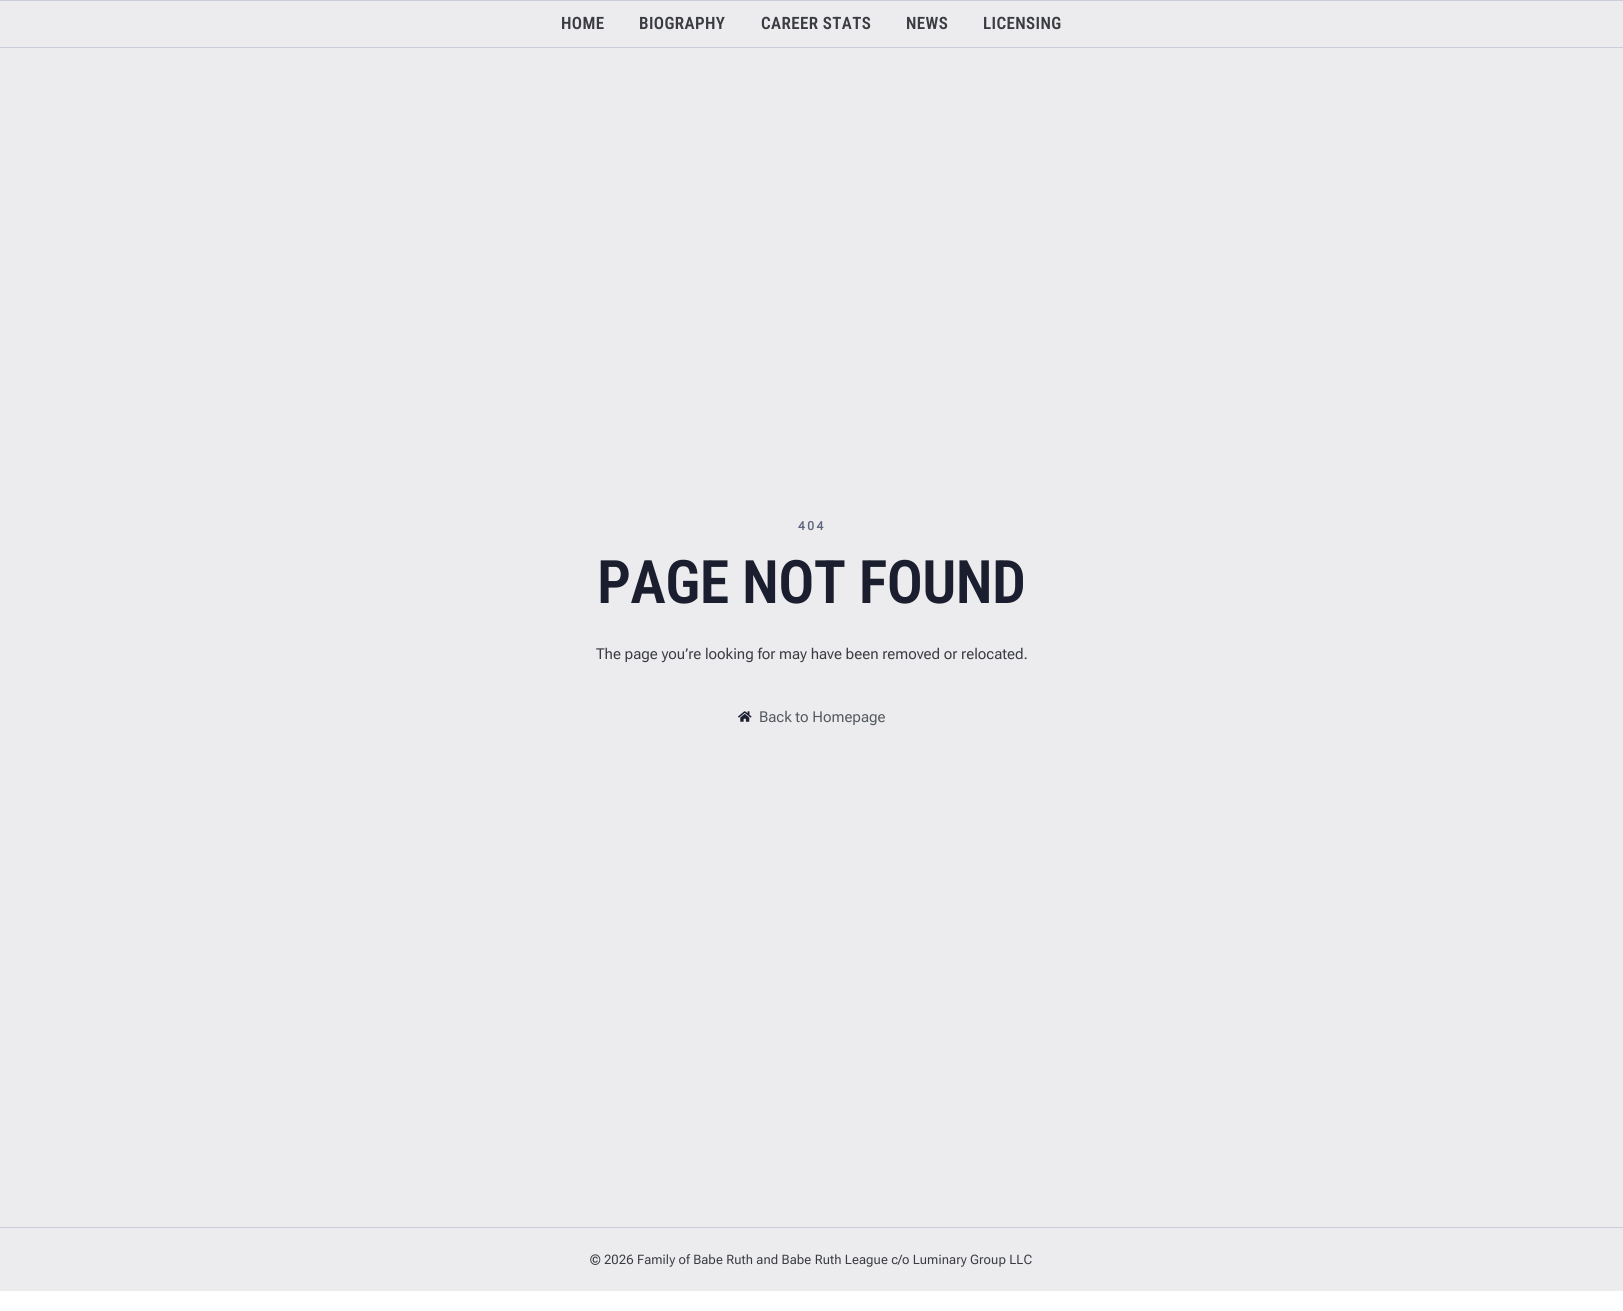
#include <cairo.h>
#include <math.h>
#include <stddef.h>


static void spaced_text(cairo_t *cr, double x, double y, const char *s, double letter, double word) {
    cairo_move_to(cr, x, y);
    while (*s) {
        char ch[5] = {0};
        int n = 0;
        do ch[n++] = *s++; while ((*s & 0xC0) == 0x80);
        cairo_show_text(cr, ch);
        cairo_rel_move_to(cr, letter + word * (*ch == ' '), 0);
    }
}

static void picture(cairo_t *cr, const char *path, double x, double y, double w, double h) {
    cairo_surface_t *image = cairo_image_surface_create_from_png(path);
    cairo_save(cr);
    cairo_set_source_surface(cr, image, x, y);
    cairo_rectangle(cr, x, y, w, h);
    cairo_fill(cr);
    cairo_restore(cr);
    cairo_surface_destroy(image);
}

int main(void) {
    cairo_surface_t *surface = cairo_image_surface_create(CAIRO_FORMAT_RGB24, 1623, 1311);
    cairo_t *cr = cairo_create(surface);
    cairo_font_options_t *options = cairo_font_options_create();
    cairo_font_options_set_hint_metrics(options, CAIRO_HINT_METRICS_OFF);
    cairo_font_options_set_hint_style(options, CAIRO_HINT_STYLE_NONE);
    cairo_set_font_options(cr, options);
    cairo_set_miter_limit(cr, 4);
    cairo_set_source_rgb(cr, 1, 1, 1);
    cairo_paint(cr);
    cairo_set_source_rgb(cr, 0.922, 0.925, 0.933);
    cairo_rectangle(cr, 0, 1, 1623, 46);
    cairo_fill(cr);
    cairo_set_source_rgb(cr, 0.788, 0.808, 0.847);
    cairo_rectangle(cr, 0, 0, 1623, 1);
    cairo_fill(cr);
    cairo_rectangle(cr, 0, 47, 1623, 1);
    cairo_fill(cr);
    cairo_select_font_face(cr, "Roboto Condensed SemiBold", CAIRO_FONT_SLANT_NORMAL, CAIRO_FONT_WEIGHT_NORMAL);
    cairo_set_font_size(cr, 17);
    cairo_set_source_rgb(cr, 0.227, 0.235, 0.259);
    spaced_text(cr, 561, 29, "HOME", 0.4, 0);
    spaced_text(cr, 639, 29, "BIOGRAPHY", 0.4, 0);
    spaced_text(cr, 761, 29, "CAREER STATS", 0.4, 0);
    spaced_text(cr, 906, 29, "NEWS", 0.4, 0);
    spaced_text(cr, 983, 29, "LICENSING", 0.4, 0);
    cairo_set_source_rgb(cr, 0.922, 0.925, 0.933);
    cairo_rectangle(cr, 0, 48, 1623, 1179);
    cairo_fill(cr);
    cairo_select_font_face(cr, "Roboto Flex", CAIRO_FONT_SLANT_NORMAL, CAIRO_FONT_WEIGHT_BOLD);
    cairo_set_font_size(cr, 12);
    cairo_set_source_rgb(cr, 0.373, 0.392, 0.506);
    spaced_text(cr, 798, 530, "404", 2.5, 0);
    cairo_select_font_face(cr, "Roboto Condensed SemiBold", CAIRO_FONT_SLANT_NORMAL, CAIRO_FONT_WEIGHT_NORMAL);
    cairo_set_font_size(cr, 60);
    cairo_set_source_rgb(cr, 0.106, 0.118, 0.18);
    spaced_text(cr, 597, 603, "PAGE NOT FOUND", -0.6, 0);
    cairo_select_font_face(cr, "Roboto Flex", CAIRO_FONT_SLANT_NORMAL, CAIRO_FONT_WEIGHT_NORMAL);
    cairo_set_font_size(cr, 15);
    cairo_set_source_rgb(cr, 0.227, 0.235, 0.259);
    cairo_move_to(cr, 596, 659);
    cairo_show_text(cr, "The page you’re looking for may have been removed or relocated.");
    picture(cr, "img1.png", 738, 711, 14, 11);
    cairo_set_source_rgb(cr, 0.329, 0.349, 0.373);
    cairo_move_to(cr, 759, 722);
    cairo_show_text(cr, "Back to Homepage");
    cairo_set_source_rgb(cr, 0.922, 0.925, 0.933);
    cairo_rectangle(cr, 0, 1228, 1623, 63);
    cairo_fill(cr);
    cairo_set_source_rgb(cr, 0.788, 0.808, 0.847);
    cairo_rectangle(cr, 0, 1227, 1623, 1);
    cairo_fill(cr);
    cairo_set_font_size(cr, 13);
    cairo_set_source_rgb(cr, 0.227, 0.235, 0.259);
    spaced_text(cr, 590, 1264, "© 2026 Family of Babe Ruth and Babe Ruth League c/o Luminary Group LLC", 0.1, 0);
    cairo_surface_write_to_png(surface, "page.png");
    cairo_font_options_destroy(options);
    cairo_destroy(cr);
    cairo_surface_destroy(surface);
    return 0;
}
